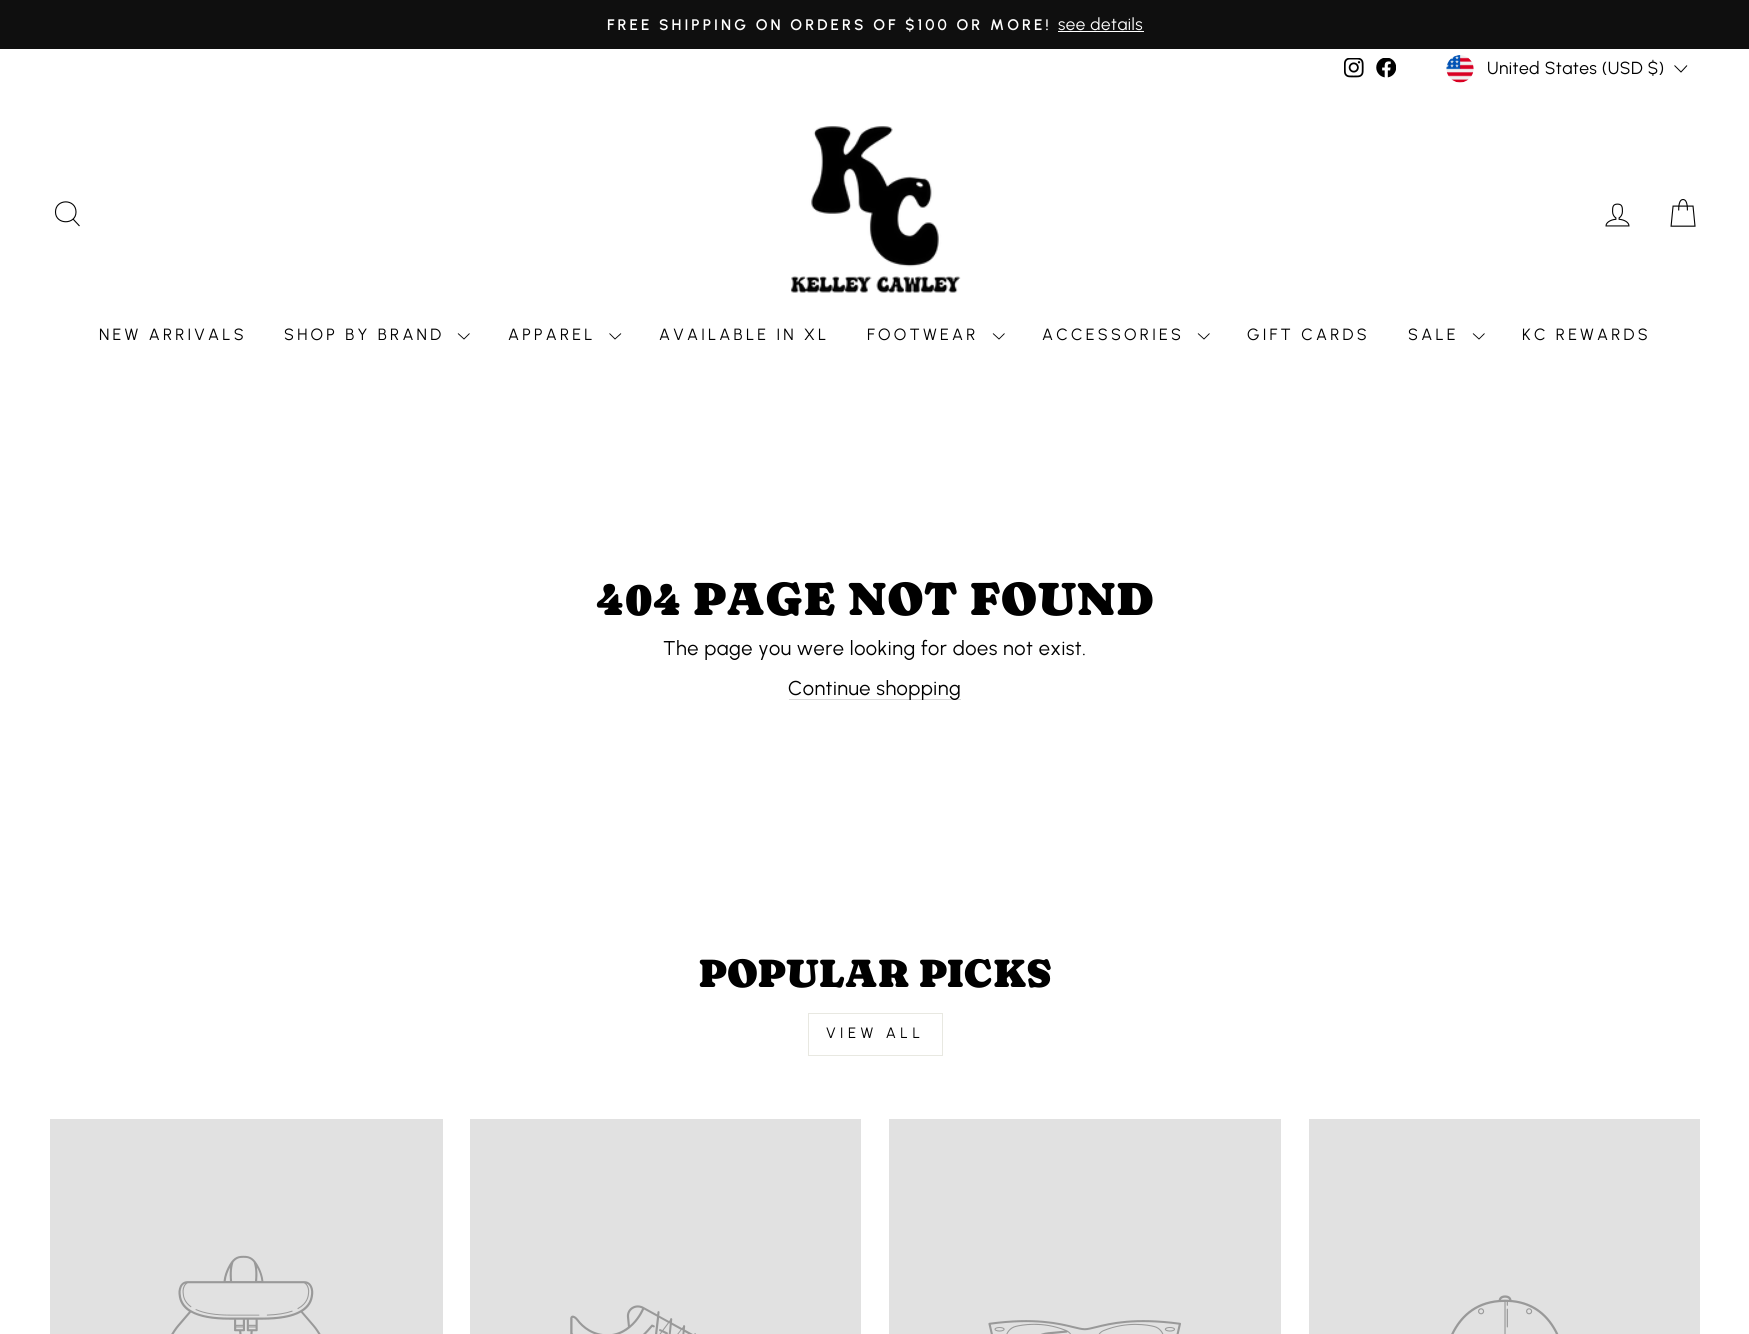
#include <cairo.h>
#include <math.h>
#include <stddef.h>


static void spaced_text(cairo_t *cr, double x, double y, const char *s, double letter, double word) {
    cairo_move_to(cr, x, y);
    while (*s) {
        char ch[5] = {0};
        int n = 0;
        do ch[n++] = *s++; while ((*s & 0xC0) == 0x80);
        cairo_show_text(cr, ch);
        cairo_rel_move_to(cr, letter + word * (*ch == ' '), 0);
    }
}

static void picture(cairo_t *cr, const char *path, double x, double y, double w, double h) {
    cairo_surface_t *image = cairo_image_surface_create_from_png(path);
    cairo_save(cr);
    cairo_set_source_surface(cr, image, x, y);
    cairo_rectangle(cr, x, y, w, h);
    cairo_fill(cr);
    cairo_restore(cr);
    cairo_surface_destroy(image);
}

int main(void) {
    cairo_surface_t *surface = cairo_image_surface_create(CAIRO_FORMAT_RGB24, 1749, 1334);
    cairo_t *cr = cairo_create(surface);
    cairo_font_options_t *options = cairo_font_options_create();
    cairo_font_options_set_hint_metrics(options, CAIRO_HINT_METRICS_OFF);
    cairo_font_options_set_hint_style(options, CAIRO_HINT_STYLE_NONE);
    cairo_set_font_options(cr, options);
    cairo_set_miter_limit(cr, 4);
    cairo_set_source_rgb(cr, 1, 1, 1);
    cairo_paint(cr);
    cairo_set_source_rgb(cr, 0.059, 0.059, 0.059);
    cairo_rectangle(cr, 0, 0, 1749, 49);
    cairo_fill(cr);
    cairo_select_font_face(cr, "Urbanist SemiBold", CAIRO_FONT_SLANT_NORMAL, CAIRO_FONT_WEIGHT_NORMAL);
    cairo_set_font_size(cr, 15.3);
    cairo_set_source_rgb(cr, 1, 1, 1);
    spaced_text(cr, 607, 30, "FREE SHIPPING ON ORDERS OF $100 OR MORE!", 3.05, 0);
    cairo_select_font_face(cr, "Urbanist", CAIRO_FONT_SLANT_NORMAL, CAIRO_FONT_WEIGHT_NORMAL);
    cairo_set_font_size(cr, 17);
    spaced_text(cr, 1058, 30, "see details", 0.5, 0);
    cairo_rectangle(cr, 1058, 31, 86, 1);
    cairo_fill(cr);
    picture(cr, "img1.png", 1344, 58, 20, 20);
    picture(cr, "img2.png", 1376, 58, 20, 20);
    picture(cr, "img3.png", 1446, 55, 28, 28);
    cairo_set_font_size(cr, 17.5);
    cairo_set_source_rgb(cr, 0, 0, 0);
    spaced_text(cr, 1487, 74, "United States (USD $)", 0.4, 0);
    cairo_new_path(cr);
    cairo_move_to(cr, 1674.5, 65.5);
    cairo_line_to(cr, 1681, 72);
    cairo_line_to(cr, 1687, 65.5);
    cairo_set_line_width(cr, 1);
    cairo_stroke(cr);
    cairo_new_path(cr);
    cairo_move_to(cr, 76, 212);
    cairo_curve_to(cr, 76, 225, 55.5, 225, 55.5, 212);
    cairo_curve_to(cr, 55.5, 198.5, 76, 198.5, 76, 212);
    cairo_close_path(cr);
    cairo_move_to(cr, 79.5, 226);
    cairo_line_to(cr, 73, 219);
    cairo_set_line_width(cr, 1.1);
    cairo_stroke(cr);
    picture(cr, "img4.png", 790, 126, 171, 167);
    picture(cr, "img5.png", 1605, 203, 25, 24);
    picture(cr, "img6.png", 1670, 199, 26, 28);
    cairo_set_font_size(cr, 16.25);
    spaced_text(cr, 99, 340, "NEW ARRIVALS", 3.25, 0);
    spaced_text(cr, 284, 340, "SHOP BY BRAND", 3.25, 0);
    cairo_new_path(cr);
    cairo_move_to(cr, 458, 333.5);
    cairo_line_to(cr, 464, 339);
    cairo_line_to(cr, 469.5, 333.5);
    cairo_set_line_width(cr, 0.9);
    cairo_stroke(cr);
    spaced_text(cr, 508, 340, "APPAREL", 3.25, 0);
    cairo_new_path(cr);
    cairo_move_to(cr, 609.5, 333.5);
    cairo_line_to(cr, 615, 339);
    cairo_line_to(cr, 621, 333.5);
    cairo_stroke(cr);
    spaced_text(cr, 659, 340, "AVAILABLE IN XL", 3.25, 0);
    spaced_text(cr, 867, 340, "FOOTWEAR", 3.25, 0);
    cairo_new_path(cr);
    cairo_move_to(cr, 993, 333.5);
    cairo_line_to(cr, 999, 339);
    cairo_line_to(cr, 1004.5, 333.5);
    cairo_stroke(cr);
    spaced_text(cr, 1042, 340, "ACCESSORIES", 3.25, 0);
    cairo_new_path(cr);
    cairo_move_to(cr, 1198, 333.5);
    cairo_line_to(cr, 1204, 339);
    cairo_line_to(cr, 1209.5, 333.5);
    cairo_stroke(cr);
    spaced_text(cr, 1247, 340, "GIFT CARDS", 3.25, 0);
    spaced_text(cr, 1408, 340, "SALE", 3.25, 0);
    cairo_new_path(cr);
    cairo_move_to(cr, 1473, 333.5);
    cairo_line_to(cr, 1479, 339);
    cairo_line_to(cr, 1484.5, 333.5);
    cairo_stroke(cr);
    spaced_text(cr, 1522, 340, "KC REWARDS", 3.25, 0);
    cairo_select_font_face(cr, "Caprasimo", CAIRO_FONT_SLANT_NORMAL, CAIRO_FONT_WEIGHT_NORMAL);
    cairo_set_font_size(cr, 47.5);
    cairo_move_to(cr, 596, 615);
    cairo_show_text(cr, "404 PAGE NOT FOUND");
    cairo_select_font_face(cr, "Urbanist", CAIRO_FONT_SLANT_NORMAL, CAIRO_FONT_WEIGHT_NORMAL);
    cairo_set_font_size(cr, 20);
    spaced_text(cr, 663, 655, "The page you were looking for does not exist.", 0.5, 0);
    cairo_set_source_rgb(cr, 0.851, 0.851, 0.851);
    cairo_rectangle(cr, 789, 699, 172, 1);
    cairo_fill(cr);
    cairo_set_source_rgb(cr, 0, 0, 0);
    spaced_text(cr, 788, 695, "Continue shopping", 0.5, 0);
    cairo_select_font_face(cr, "Caprasimo", CAIRO_FONT_SLANT_NORMAL, CAIRO_FONT_WEIGHT_NORMAL);
    cairo_set_font_size(cr, 40.4);
    cairo_move_to(cr, 699, 987);
    cairo_show_text(cr, "POPULAR PICKS");
    cairo_rectangle(cr, 808.5, 1013.5, 134, 42);
    cairo_set_source_rgb(cr, 0.91, 0.91, 0.882);
    cairo_set_line_width(cr, 1);
    cairo_stroke(cr);
    cairo_select_font_face(cr, "Urbanist", CAIRO_FONT_SLANT_NORMAL, CAIRO_FONT_WEIGHT_NORMAL);
    cairo_set_font_size(cr, 15);
    cairo_set_source_rgb(cr, 0, 0, 0);
    spaced_text(cr, 826, 1038, "VIEW ALL", 4.5, 0);
    cairo_set_source_rgb(cr, 0.882, 0.882, 0.882);
    cairo_rectangle(cr, 50, 1119, 393, 215);
    cairo_fill(cr);
    picture(cr, "img7.png", 171, 1255, 150, 79);
    cairo_rectangle(cr, 470, 1119, 391, 215);
    cairo_fill(cr);
    picture(cr, "img8.png", 570, 1305, 126, 29);
    cairo_rectangle(cr, 889, 1119, 392, 215);
    cairo_fill(cr);
    picture(cr, "img9.png", 988, 1320, 193, 14);
    cairo_rectangle(cr, 1309, 1119, 391, 215);
    cairo_fill(cr);
    picture(cr, "img10.png", 1451, 1295, 108, 39);
    cairo_surface_write_to_png(surface, "page.png");
    cairo_font_options_destroy(options);
    cairo_destroy(cr);
    cairo_surface_destroy(surface);
    return 0;
}
